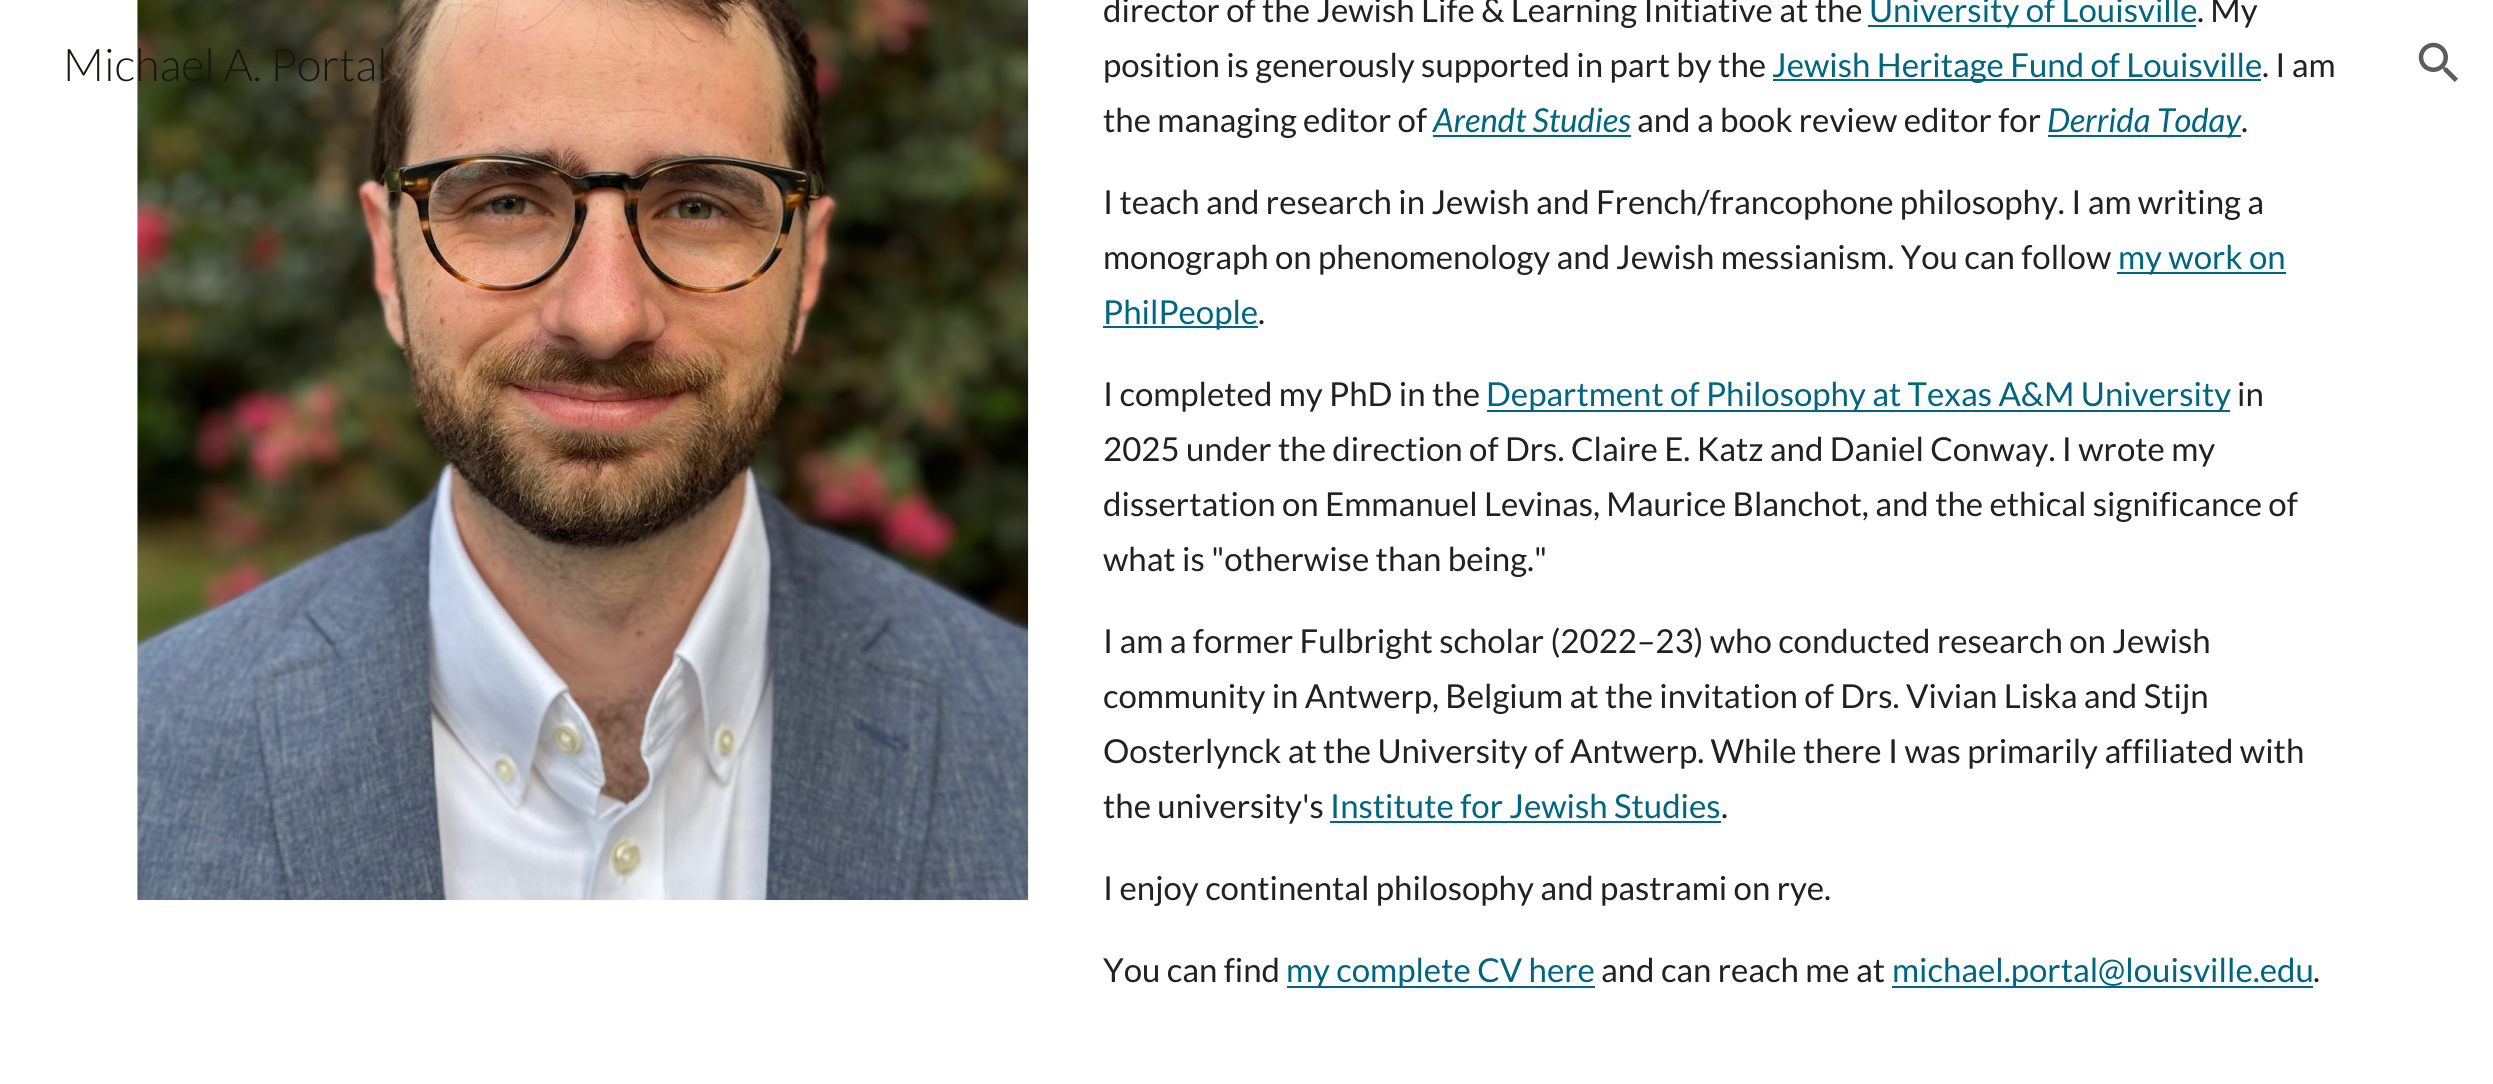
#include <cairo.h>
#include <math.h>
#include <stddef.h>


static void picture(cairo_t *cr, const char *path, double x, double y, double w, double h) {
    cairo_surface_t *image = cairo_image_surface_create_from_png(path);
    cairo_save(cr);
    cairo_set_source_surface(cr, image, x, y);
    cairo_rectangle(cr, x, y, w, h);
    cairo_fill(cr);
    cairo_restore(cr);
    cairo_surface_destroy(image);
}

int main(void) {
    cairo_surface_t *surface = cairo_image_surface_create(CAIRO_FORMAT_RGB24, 2493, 1084);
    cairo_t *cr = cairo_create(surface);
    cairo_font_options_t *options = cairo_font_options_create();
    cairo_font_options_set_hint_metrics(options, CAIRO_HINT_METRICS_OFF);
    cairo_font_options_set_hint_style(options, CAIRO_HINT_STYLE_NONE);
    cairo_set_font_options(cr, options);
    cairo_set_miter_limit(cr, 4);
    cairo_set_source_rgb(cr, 1, 1, 1);
    cairo_paint(cr);
    picture(cr, "img2.png", 137, 0, 892, 900);
    cairo_select_font_face(cr, "Lato Light", CAIRO_FONT_SLANT_NORMAL, CAIRO_FONT_WEIGHT_NORMAL);
    cairo_set_font_size(cr, 45);
    cairo_set_source_rgb(cr, 0.086, 0.086, 0.071);
    cairo_move_to(cr, 63, 81);
    cairo_show_text(cr, "Michael A. Portal");
    picture(cr, "img1.png", 2418, 42, 40, 40);
    cairo_select_font_face(cr, "Lato", CAIRO_FONT_SLANT_NORMAL, CAIRO_FONT_WEIGHT_NORMAL);
    cairo_set_font_size(cr, 33);
    cairo_set_source_rgb(cr, 0.129, 0.129, 0.129);
    cairo_move_to(cr, 1103, 22);
    cairo_show_text(cr, "director of the Jewish Life & Learning Initiative at the");
    cairo_set_source_rgb(cr, 0, 0.396, 0.502);
    cairo_rectangle(cr, 1868, 25, 328, 2);
    cairo_fill(cr);
    cairo_move_to(cr, 1869, 22);
    cairo_show_text(cr, "University of Louisville");
    cairo_set_source_rgb(cr, 0.129, 0.129, 0.129);
    cairo_move_to(cr, 2197, 22);
    cairo_show_text(cr, ". My");
    cairo_move_to(cr, 1103, 77);
    cairo_show_text(cr, "position is generously supported in part by the");
    cairo_set_source_rgb(cr, 0, 0.396, 0.502);
    cairo_rectangle(cr, 1773, 79, 488, 2);
    cairo_fill(cr);
    cairo_move_to(cr, 1772, 77);
    cairo_show_text(cr, "Jewish Heritage Fund of Louisville");
    cairo_set_source_rgb(cr, 0.129, 0.129, 0.129);
    cairo_move_to(cr, 2262, 77);
    cairo_show_text(cr, ". I am");
    cairo_move_to(cr, 1103, 132);
    cairo_show_text(cr, "the managing editor of");
    cairo_select_font_face(cr, "Lato", CAIRO_FONT_SLANT_ITALIC, CAIRO_FONT_WEIGHT_NORMAL);
    cairo_set_source_rgb(cr, 0, 0.396, 0.502);
    cairo_move_to(cr, 1433, 132);
    cairo_show_text(cr, "Arendt Studies");
    cairo_rectangle(cr, 1433, 135, 198, 2);
    cairo_fill(cr);
    cairo_select_font_face(cr, "Lato", CAIRO_FONT_SLANT_NORMAL, CAIRO_FONT_WEIGHT_NORMAL);
    cairo_set_source_rgb(cr, 0.129, 0.129, 0.129);
    cairo_move_to(cr, 1637, 132);
    cairo_show_text(cr, "and a book review editor for");
    cairo_set_source_rgb(cr, 0, 0.396, 0.502);
    cairo_rectangle(cr, 2048, 135, 193, 2);
    cairo_fill(cr);
    cairo_select_font_face(cr, "Lato", CAIRO_FONT_SLANT_ITALIC, CAIRO_FONT_WEIGHT_NORMAL);
    cairo_move_to(cr, 2047, 132);
    cairo_show_text(cr, "Derrida Today");
    cairo_select_font_face(cr, "Lato", CAIRO_FONT_SLANT_NORMAL, CAIRO_FONT_WEIGHT_NORMAL);
    cairo_set_source_rgb(cr, 0.129, 0.129, 0.129);
    cairo_move_to(cr, 2241, 132);
    cairo_show_text(cr, ".");
    cairo_move_to(cr, 1103, 214);
    cairo_show_text(cr, "I teach and research in Jewish and French/francophone philosophy. I am writing a");
    cairo_move_to(cr, 1103, 269);
    cairo_show_text(cr, "monograph on phenomenology and");
    cairo_move_to(cr, 1616, 269);
    cairo_show_text(cr, "Jewish messianism. You can follow");
    cairo_set_source_rgb(cr, 0, 0.396, 0.502);
    cairo_rectangle(cr, 2117, 272, 169, 2);
    cairo_fill(cr);
    cairo_move_to(cr, 2118, 269);
    cairo_show_text(cr, "my work on");
    cairo_rectangle(cr, 1103, 326, 155, 2);
    cairo_fill(cr);
    cairo_move_to(cr, 1103, 324);
    cairo_show_text(cr, "PhilPeople");
    cairo_set_source_rgb(cr, 0.129, 0.129, 0.129);
    cairo_move_to(cr, 1258, 324);
    cairo_show_text(cr, ".");
    cairo_move_to(cr, 1103, 406);
    cairo_show_text(cr, "I completed my PhD in the");
    cairo_set_source_rgb(cr, 0, 0.396, 0.502);
    cairo_rectangle(cr, 1487, 410, 743, 2);
    cairo_fill(cr);
    cairo_move_to(cr, 1486, 406);
    cairo_show_text(cr, "Department of Philosophy at Texas A&M University");
    cairo_set_source_rgb(cr, 0.129, 0.129, 0.129);
    cairo_move_to(cr, 2237, 406);
    cairo_show_text(cr, "in");
    cairo_move_to(cr, 1103, 461);
    cairo_show_text(cr, "2025 under the direction of Drs.");
    cairo_move_to(cr, 1571, 461);
    cairo_show_text(cr, "Claire E. Katz and Daniel Conway. I wrote my");
    cairo_move_to(cr, 1103, 516);
    cairo_show_text(cr, "dissertation on Emmanuel Levinas, Maurice Blanchot, and the ethical significance of");
    cairo_move_to(cr, 1103, 571);
    cairo_show_text(cr, "what is \"otherwise than being.\"");
    cairo_move_to(cr, 1103, 653);
    cairo_show_text(cr, "I am a former Fulbright scholar (2022–23) who conducted research on Jewish");
    cairo_move_to(cr, 1103, 708);
    cairo_show_text(cr, "community in Antwerp, Belgium at the invitation of Drs. Vivian Liska and Stijn");
    cairo_move_to(cr, 1103, 763);
    cairo_show_text(cr, "Oosterlynck at the University of Antwerp. While there I was primarily affiliated with");
    cairo_move_to(cr, 1103, 818);
    cairo_show_text(cr, "the university's");
    cairo_set_source_rgb(cr, 0, 0.396, 0.502);
    cairo_move_to(cr, 1330, 818);
    cairo_show_text(cr, "Institute for Jewish Studies");
    cairo_rectangle(cr, 1330, 821, 391, 2);
    cairo_fill(cr);
    cairo_set_source_rgb(cr, 0.129, 0.129, 0.129);
    cairo_move_to(cr, 1721, 818);
    cairo_show_text(cr, ".");
    cairo_move_to(cr, 1103, 900);
    cairo_show_text(cr, "I enjoy continental philosophy and pastrami on rye.");
    cairo_move_to(cr, 1103, 982);
    cairo_show_text(cr, "You can find");
    cairo_set_source_rgb(cr, 0, 0.396, 0.502);
    cairo_rectangle(cr, 1287, 986, 308, 2);
    cairo_fill(cr);
    cairo_move_to(cr, 1286, 982);
    cairo_show_text(cr, "my complete CV here");
    cairo_set_source_rgb(cr, 0.129, 0.129, 0.129);
    cairo_move_to(cr, 1601, 982);
    cairo_show_text(cr, "and can reach me at");
    cairo_set_source_rgb(cr, 0, 0.396, 0.502);
    cairo_rectangle(cr, 1892, 986, 421, 2);
    cairo_fill(cr);
    cairo_move_to(cr, 1892, 982);
    cairo_show_text(cr, "michael.portal@louisville.edu");
    cairo_set_source_rgb(cr, 0.129, 0.129, 0.129);
    cairo_move_to(cr, 2313, 982);
    cairo_show_text(cr, ".");
    cairo_surface_write_to_png(surface, "page.png");
    cairo_font_options_destroy(options);
    cairo_destroy(cr);
    cairo_surface_destroy(surface);
    return 0;
}
